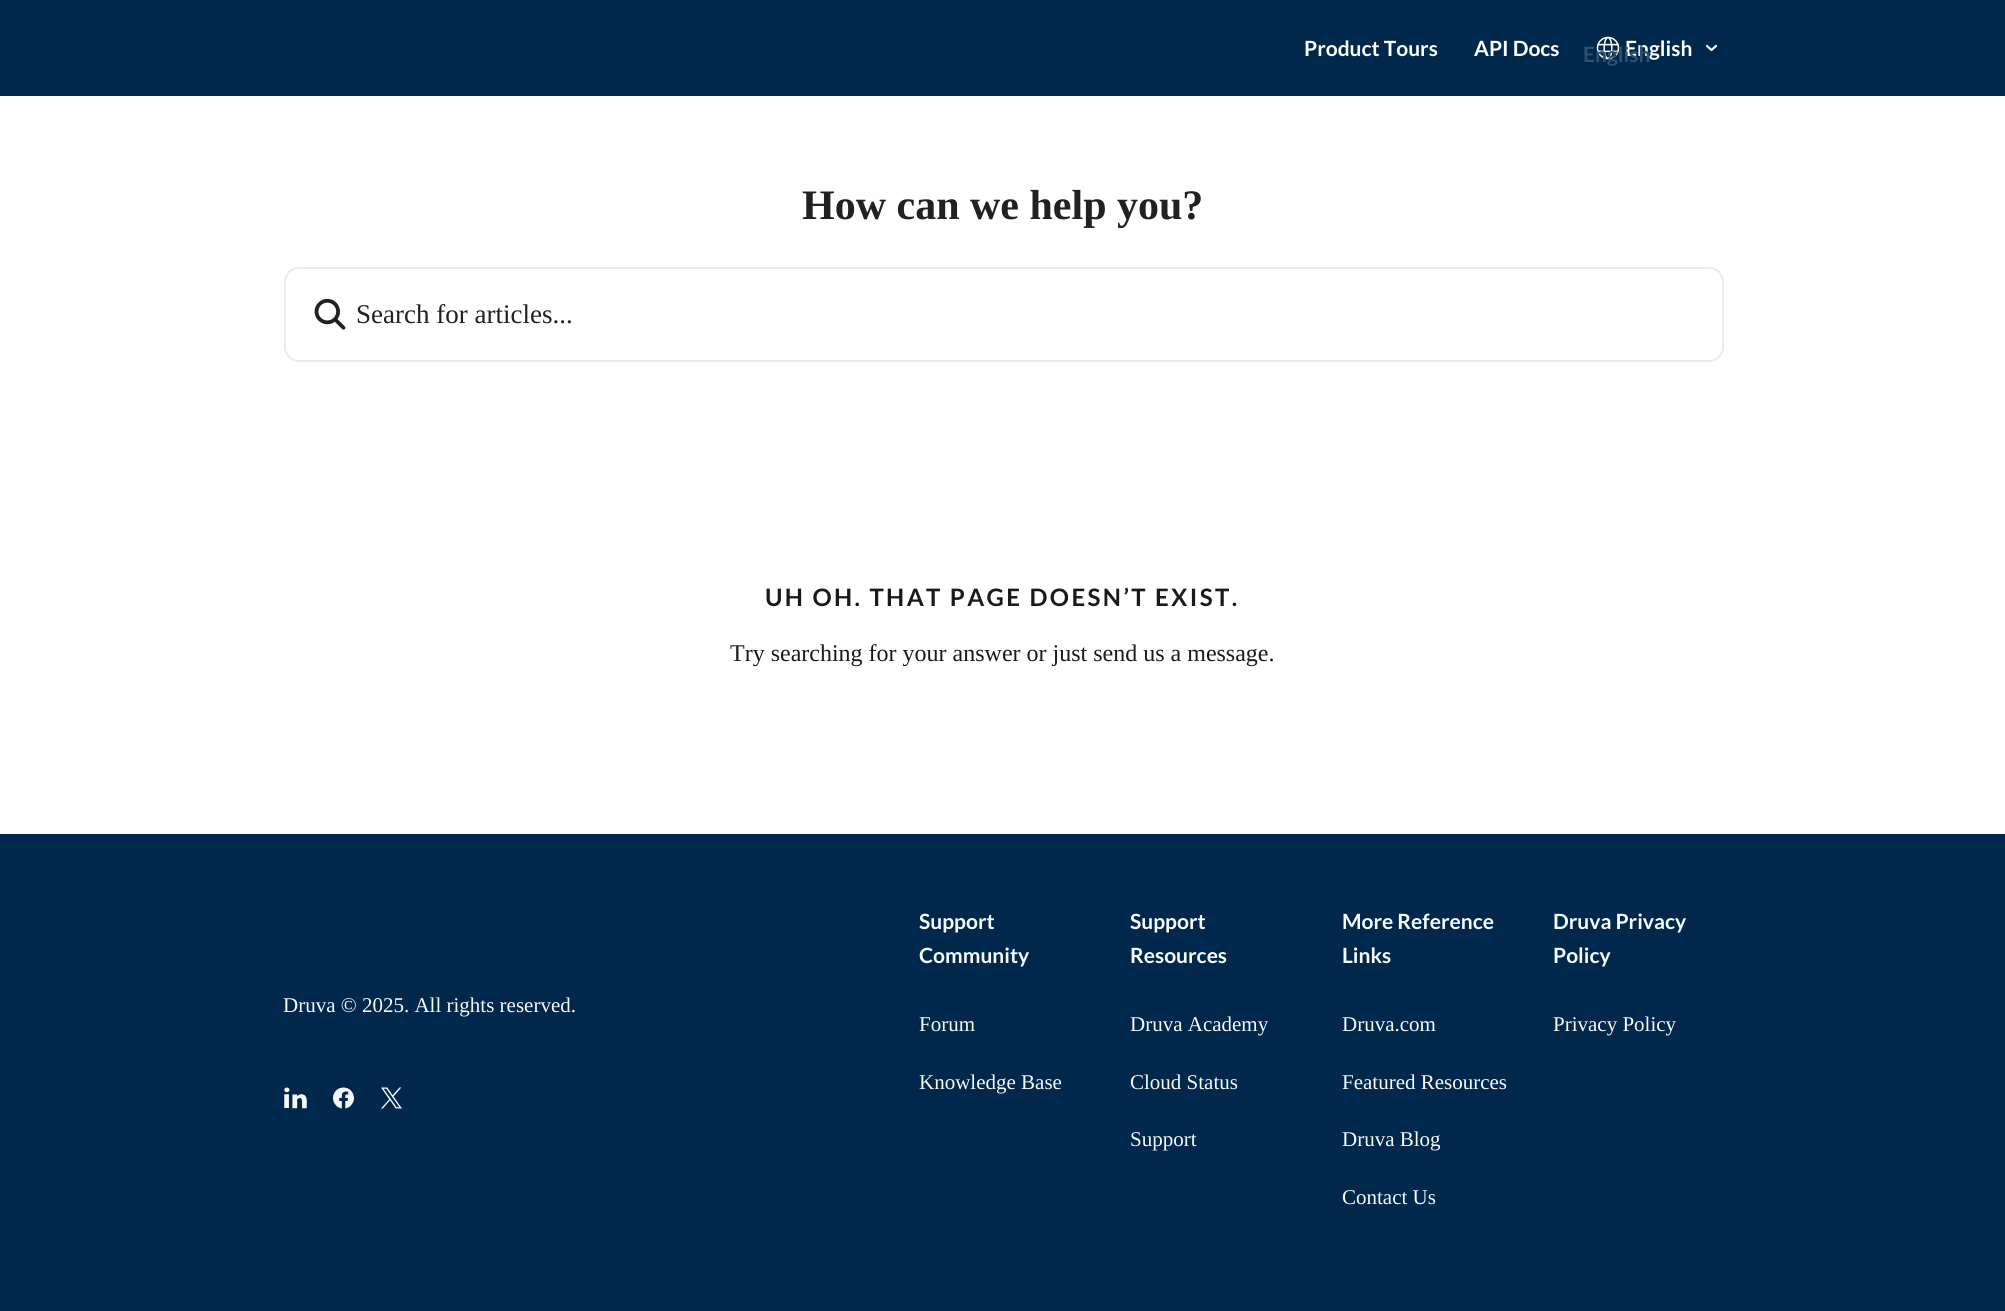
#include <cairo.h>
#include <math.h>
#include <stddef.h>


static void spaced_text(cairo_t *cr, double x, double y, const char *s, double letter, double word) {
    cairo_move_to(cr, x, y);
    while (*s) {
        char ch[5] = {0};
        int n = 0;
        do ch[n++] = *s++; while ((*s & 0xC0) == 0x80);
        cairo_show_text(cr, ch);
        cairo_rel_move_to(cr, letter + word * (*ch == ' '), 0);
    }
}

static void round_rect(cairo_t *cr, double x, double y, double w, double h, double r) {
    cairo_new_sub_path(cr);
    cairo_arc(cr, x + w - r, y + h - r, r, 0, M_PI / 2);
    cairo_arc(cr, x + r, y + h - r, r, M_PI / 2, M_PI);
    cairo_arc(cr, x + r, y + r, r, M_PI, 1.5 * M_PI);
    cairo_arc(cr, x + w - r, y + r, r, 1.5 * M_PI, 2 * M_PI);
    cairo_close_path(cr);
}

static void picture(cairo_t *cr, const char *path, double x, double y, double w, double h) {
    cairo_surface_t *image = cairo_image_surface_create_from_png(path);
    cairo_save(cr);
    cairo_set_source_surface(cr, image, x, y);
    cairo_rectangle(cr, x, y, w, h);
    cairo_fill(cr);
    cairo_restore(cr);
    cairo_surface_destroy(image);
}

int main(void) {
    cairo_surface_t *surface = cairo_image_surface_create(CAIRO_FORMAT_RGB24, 2005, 1311);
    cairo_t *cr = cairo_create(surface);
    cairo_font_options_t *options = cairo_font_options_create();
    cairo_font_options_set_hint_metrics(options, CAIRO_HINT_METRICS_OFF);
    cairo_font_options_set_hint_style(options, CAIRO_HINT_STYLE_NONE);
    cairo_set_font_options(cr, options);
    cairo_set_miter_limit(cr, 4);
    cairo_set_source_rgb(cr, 1, 1, 1);
    cairo_paint(cr);
    cairo_set_source_rgb(cr, 0, 0.157, 0.298);
    cairo_rectangle(cr, 0, 0, 2005, 96);
    cairo_fill(cr);
    cairo_select_font_face(cr, "Lato", CAIRO_FONT_SLANT_NORMAL, CAIRO_FONT_WEIGHT_BOLD);
    cairo_set_font_size(cr, 21);
    cairo_set_source_rgb(cr, 1, 1, 1);
    cairo_move_to(cr, 1304, 56);
    cairo_show_text(cr, "Product Tours");
    cairo_move_to(cr, 1474, 56);
    cairo_show_text(cr, "API Docs");
    picture(cr, "img1.png", 1596, 36, 24, 24);
    cairo_move_to(cr, 1625, 56);
    cairo_show_text(cr, "English");
    cairo_set_source_rgb(cr, 0.188, 0.318, 0.431);
    cairo_move_to(cr, 1583, 62);
    cairo_show_text(cr, "English");
    cairo_new_path(cr);
    cairo_move_to(cr, 1707, 46);
    cairo_line_to(cr, 1711.5, 50);
    cairo_line_to(cr, 1716, 46);
    cairo_set_source_rgb(cr, 1, 1, 1);
    cairo_set_line_width(cr, 2.2);
    cairo_set_line_cap(cr, CAIRO_LINE_CAP_ROUND);
    cairo_set_line_join(cr, CAIRO_LINE_JOIN_ROUND);
    cairo_stroke(cr);
    cairo_select_font_face(cr, "Liberation Serif", CAIRO_FONT_SLANT_NORMAL, CAIRO_FONT_WEIGHT_BOLD);
    cairo_set_font_size(cr, 42);
    cairo_set_source_rgb(cr, 0.129, 0.129, 0.129);
    cairo_move_to(cr, 802, 219);
    cairo_show_text(cr, "How can we help you?");
    round_rect(cr, 285, 268, 1438, 93, 14);
    cairo_set_source_rgba(cr, 0, 0, 0, 0.08);
    cairo_set_line_width(cr, 2);
    cairo_set_line_cap(cr, CAIRO_LINE_CAP_BUTT);
    cairo_set_line_join(cr, CAIRO_LINE_JOIN_MITER);
    cairo_stroke(cr);
    picture(cr, "img2.png", 314, 299, 32, 31);
    cairo_select_font_face(cr, "Liberation Serif", CAIRO_FONT_SLANT_NORMAL, CAIRO_FONT_WEIGHT_NORMAL);
    cairo_set_font_size(cr, 27);
    cairo_set_source_rgb(cr, 0.129, 0.129, 0.129);
    cairo_move_to(cr, 356, 323);
    cairo_show_text(cr, "Search for articles...");
    cairo_select_font_face(cr, "Lato", CAIRO_FONT_SLANT_NORMAL, CAIRO_FONT_WEIGHT_BOLD);
    cairo_set_font_size(cr, 24);
    cairo_set_source_rgb(cr, 0.102, 0.102, 0.102);
    spaced_text(cr, 765, 606, "UH OH. THAT PAGE DOESN’T EXIST.", 2.4, 0);
    cairo_select_font_face(cr, "Liberation Serif", CAIRO_FONT_SLANT_NORMAL, CAIRO_FONT_WEIGHT_NORMAL);
    cairo_move_to(cr, 730, 661);
    cairo_show_text(cr, "Try searching for your answer or just send us a message.");
    cairo_set_source_rgb(cr, 0, 0.157, 0.298);
    cairo_rectangle(cr, 0, 834, 2005, 477);
    cairo_fill(cr);
    cairo_set_font_size(cr, 21);
    cairo_set_source_rgb(cr, 0.976, 0.98, 0.984);
    cairo_move_to(cr, 283, 1012);
    cairo_show_text(cr, "Druva © 2025. All rights reserved.");
    picture(cr, "img3.png", 284, 1087, 23, 22);
    picture(cr, "img4.png", 333, 1087, 21, 22);
    picture(cr, "img5.png", 381, 1087, 21, 22);
    cairo_select_font_face(cr, "Lato", CAIRO_FONT_SLANT_NORMAL, CAIRO_FONT_WEIGHT_BOLD);
    cairo_move_to(cr, 919, 929);
    cairo_show_text(cr, "Support");
    cairo_move_to(cr, 919, 963);
    cairo_show_text(cr, "Community");
    cairo_select_font_face(cr, "Liberation Serif", CAIRO_FONT_SLANT_NORMAL, CAIRO_FONT_WEIGHT_NORMAL);
    cairo_move_to(cr, 919, 1031);
    cairo_show_text(cr, "Forum");
    cairo_move_to(cr, 919, 1089);
    cairo_show_text(cr, "Knowledge Base");
    cairo_select_font_face(cr, "Lato", CAIRO_FONT_SLANT_NORMAL, CAIRO_FONT_WEIGHT_BOLD);
    cairo_move_to(cr, 1130, 929);
    cairo_show_text(cr, "Support");
    cairo_move_to(cr, 1130, 963);
    cairo_show_text(cr, "Resources");
    cairo_select_font_face(cr, "Liberation Serif", CAIRO_FONT_SLANT_NORMAL, CAIRO_FONT_WEIGHT_NORMAL);
    cairo_move_to(cr, 1130, 1031);
    cairo_show_text(cr, "Druva Academy");
    cairo_move_to(cr, 1130, 1089);
    cairo_show_text(cr, "Cloud Status");
    cairo_move_to(cr, 1130, 1146);
    cairo_show_text(cr, "Support");
    cairo_select_font_face(cr, "Lato", CAIRO_FONT_SLANT_NORMAL, CAIRO_FONT_WEIGHT_BOLD);
    cairo_move_to(cr, 1342, 929);
    cairo_show_text(cr, "More Reference");
    cairo_move_to(cr, 1342, 963);
    cairo_show_text(cr, "Links");
    cairo_select_font_face(cr, "Liberation Serif", CAIRO_FONT_SLANT_NORMAL, CAIRO_FONT_WEIGHT_NORMAL);
    cairo_move_to(cr, 1342, 1031);
    cairo_show_text(cr, "Druva.com");
    cairo_move_to(cr, 1342, 1089);
    cairo_show_text(cr, "Featured Resources");
    cairo_move_to(cr, 1342, 1146);
    cairo_show_text(cr, "Druva Blog");
    cairo_move_to(cr, 1342, 1204);
    cairo_show_text(cr, "Contact Us");
    cairo_select_font_face(cr, "Lato", CAIRO_FONT_SLANT_NORMAL, CAIRO_FONT_WEIGHT_BOLD);
    cairo_move_to(cr, 1553, 929);
    cairo_show_text(cr, "Druva Privacy");
    cairo_move_to(cr, 1553, 963);
    cairo_show_text(cr, "Policy");
    cairo_select_font_face(cr, "Liberation Serif", CAIRO_FONT_SLANT_NORMAL, CAIRO_FONT_WEIGHT_NORMAL);
    cairo_move_to(cr, 1553, 1031);
    cairo_show_text(cr, "Privacy Policy");
    cairo_surface_write_to_png(surface, "page.png");
    cairo_font_options_destroy(options);
    cairo_destroy(cr);
    cairo_surface_destroy(surface);
    return 0;
}
